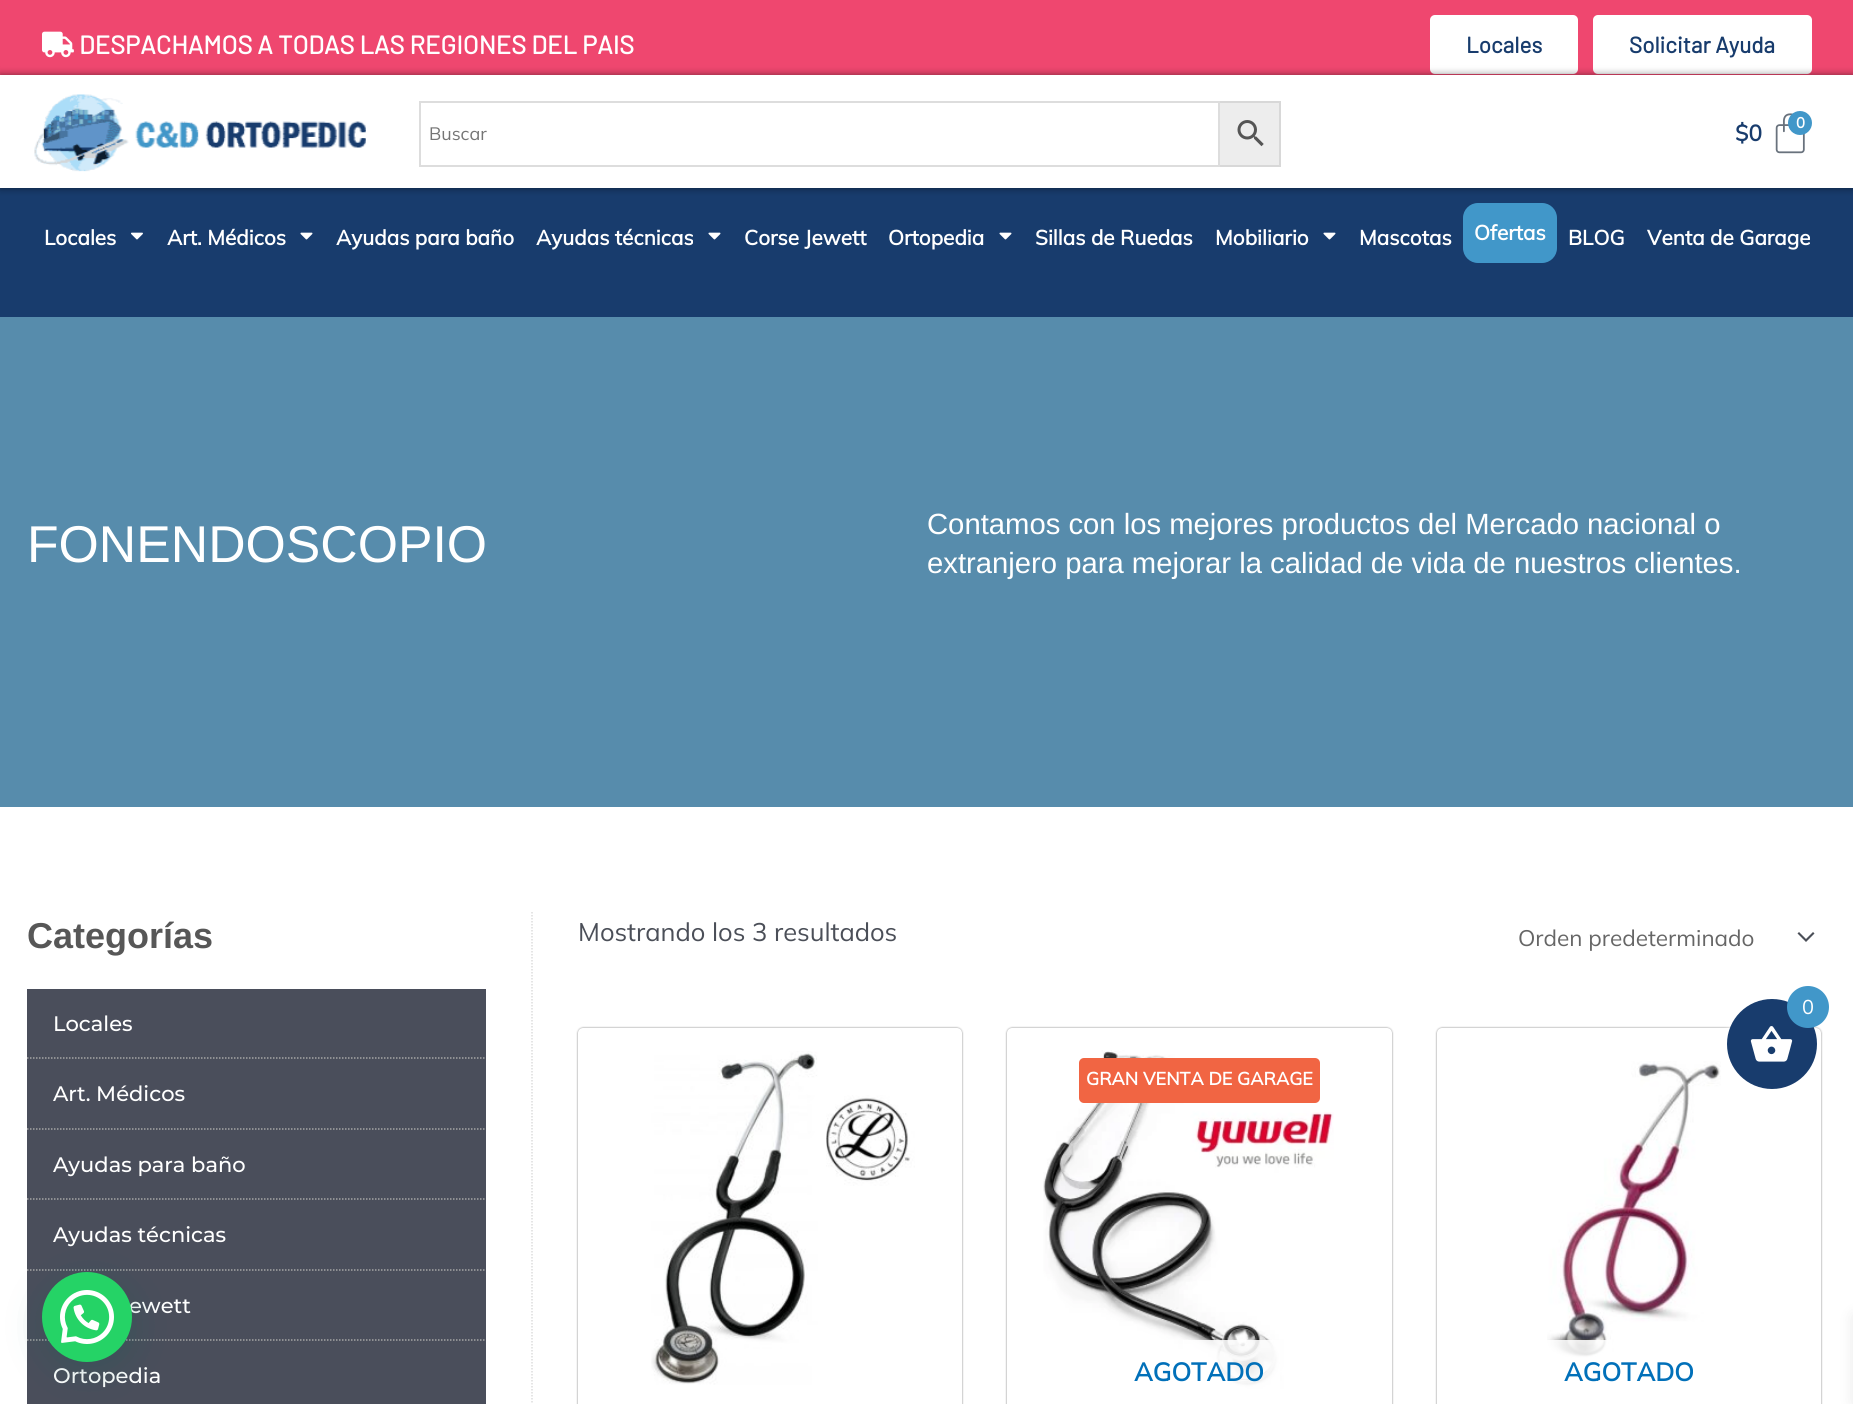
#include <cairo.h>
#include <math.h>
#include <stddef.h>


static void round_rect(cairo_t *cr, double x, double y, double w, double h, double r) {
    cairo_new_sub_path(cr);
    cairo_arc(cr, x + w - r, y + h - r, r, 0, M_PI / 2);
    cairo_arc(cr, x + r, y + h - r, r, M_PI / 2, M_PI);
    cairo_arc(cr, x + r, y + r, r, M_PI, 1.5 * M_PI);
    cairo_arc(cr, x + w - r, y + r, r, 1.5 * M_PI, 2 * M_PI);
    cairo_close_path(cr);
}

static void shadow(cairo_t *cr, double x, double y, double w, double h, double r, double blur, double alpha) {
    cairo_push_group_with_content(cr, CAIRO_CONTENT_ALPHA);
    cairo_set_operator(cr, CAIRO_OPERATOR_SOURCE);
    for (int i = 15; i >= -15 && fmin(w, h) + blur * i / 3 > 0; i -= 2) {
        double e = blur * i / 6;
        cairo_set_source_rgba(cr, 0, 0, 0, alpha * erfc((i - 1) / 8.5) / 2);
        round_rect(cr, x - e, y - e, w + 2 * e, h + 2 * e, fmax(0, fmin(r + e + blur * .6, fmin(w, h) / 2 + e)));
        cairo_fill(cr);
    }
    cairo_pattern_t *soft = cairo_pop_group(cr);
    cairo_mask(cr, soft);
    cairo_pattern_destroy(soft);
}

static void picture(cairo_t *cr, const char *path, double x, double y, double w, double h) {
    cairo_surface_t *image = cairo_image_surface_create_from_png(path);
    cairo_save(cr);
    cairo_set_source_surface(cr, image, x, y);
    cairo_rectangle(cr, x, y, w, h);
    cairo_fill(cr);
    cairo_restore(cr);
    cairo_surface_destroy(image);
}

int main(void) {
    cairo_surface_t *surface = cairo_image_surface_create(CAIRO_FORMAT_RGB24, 1853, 1404);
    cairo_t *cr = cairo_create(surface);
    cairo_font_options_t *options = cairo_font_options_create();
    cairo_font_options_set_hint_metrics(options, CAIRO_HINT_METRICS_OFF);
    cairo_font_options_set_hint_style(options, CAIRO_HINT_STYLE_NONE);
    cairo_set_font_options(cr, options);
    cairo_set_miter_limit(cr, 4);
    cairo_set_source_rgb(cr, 1, 1, 1);
    cairo_paint(cr);
    cairo_set_source_rgb(cr, 0.937, 0.278, 0.435);
    cairo_rectangle(cr, 0, 0, 1853, 75);
    cairo_fill(cr);
    picture(cr, "img1.png", 42, 31, 32, 27);
    cairo_select_font_face(cr, "Barlow", CAIRO_FONT_SLANT_NORMAL, CAIRO_FONT_WEIGHT_BOLD);
    cairo_set_font_size(cr, 25.5);
    cairo_set_source_rgb(cr, 1, 1, 1);
    cairo_move_to(cr, 79, 54);
    cairo_show_text(cr, "DESPACHAMOS A TODAS LAS REGIONES DEL PAIS");
    round_rect(cr, 1430, 15, 148, 59, 5);
    cairo_fill(cr);
    cairo_set_font_size(cr, 22.5);
    cairo_set_source_rgb(cr, 0.094, 0.235, 0.427);
    cairo_move_to(cr, 1466, 53);
    cairo_show_text(cr, "Locales");
    cairo_set_source_rgb(cr, 1, 1, 1);
    round_rect(cr, 1593, 15, 219, 59, 5);
    cairo_fill(cr);
    cairo_set_source_rgb(cr, 0.094, 0.235, 0.427);
    cairo_move_to(cr, 1629, 53);
    cairo_show_text(cr, "Solicitar Ayuda");
    cairo_rectangle(cr, 0, 188, 1853, 129);
    cairo_fill(cr);
    cairo_set_source_rgb(cr, 0, 0, 0);
    shadow(cr, 0, 75, 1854, 113, 0, 4, 0.5);
    cairo_set_source_rgb(cr, 1, 1, 1);
    cairo_rectangle(cr, 0, 75, 1853, 113);
    cairo_fill(cr);
    picture(cr, "img2.png", 34, 94, 332, 78);
    cairo_set_source_rgb(cr, 0.929, 0.929, 0.929);
    cairo_rectangle(cr, 1219, 102, 61, 64);
    cairo_fill_preserve(cr);
    cairo_set_source_rgb(cr, 0.847, 0.847, 0.847);
    cairo_stroke(cr);
    cairo_rectangle(cr, 420, 102, 799, 64);
    cairo_set_source_rgb(cr, 0.867, 0.867, 0.867);
    cairo_stroke(cr);
    cairo_select_font_face(cr, "Mulish ExtraLight", CAIRO_FONT_SLANT_NORMAL, CAIRO_FONT_WEIGHT_NORMAL);
    cairo_set_font_size(cr, 18);
    cairo_set_source_rgb(cr, 0.459, 0.459, 0.459);
    cairo_move_to(cr, 429, 140);
    cairo_show_text(cr, "Buscar");
    picture(cr, "img3.png", 1237, 120, 27, 27);
    cairo_select_font_face(cr, "Mulish", CAIRO_FONT_SLANT_NORMAL, CAIRO_FONT_WEIGHT_BOLD);
    cairo_set_font_size(cr, 22.5);
    cairo_set_source_rgb(cr, 0.094, 0.235, 0.427);
    cairo_move_to(cr, 1735, 141);
    cairo_show_text(cr, "$0");
    picture(cr, "img4.png", 1775, 113, 30, 41);
    cairo_set_source_rgb(cr, 0.255, 0.592, 0.788);
    cairo_arc(cr, 1800, 123, 12, 0, 2 * M_PI);
    cairo_fill(cr);
    cairo_set_font_size(cr, 15);
    cairo_set_source_rgb(cr, 1, 1, 1);
    cairo_move_to(cr, 1796, 128);
    cairo_show_text(cr, "0");
    cairo_set_font_size(cr, 20.75);
    cairo_move_to(cr, 44, 245);
    cairo_show_text(cr, "Locales");
    picture(cr, "img5.png", 131, 232, 12, 8);
    cairo_move_to(cr, 167, 245);
    cairo_show_text(cr, "Art. Médicos");
    picture(cr, "img6.png", 300, 232, 13, 8);
    cairo_move_to(cr, 336, 245);
    cairo_show_text(cr, "Ayudas para baño");
    cairo_move_to(cr, 536, 245);
    cairo_show_text(cr, "Ayudas técnicas");
    picture(cr, "img6.png", 708, 232, 13, 8);
    cairo_move_to(cr, 744, 245);
    cairo_show_text(cr, "Corse Jewett");
    cairo_move_to(cr, 888, 245);
    cairo_show_text(cr, "Ortopedia");
    picture(cr, "img6.png", 999, 232, 13, 8);
    cairo_move_to(cr, 1035, 245);
    cairo_show_text(cr, "Sillas de Ruedas");
    cairo_move_to(cr, 1215, 245);
    cairo_show_text(cr, "Mobiliario");
    picture(cr, "img6.png", 1323, 232, 13, 8);
    cairo_move_to(cr, 1359, 245);
    cairo_show_text(cr, "Mascotas");
    cairo_set_source_rgb(cr, 0.255, 0.592, 0.788);
    round_rect(cr, 1463, 203, 94, 60, 15);
    cairo_fill(cr);
    cairo_set_source_rgb(cr, 1, 1, 1);
    cairo_move_to(cr, 1474, 240);
    cairo_show_text(cr, "Ofertas");
    cairo_move_to(cr, 1568, 245);
    cairo_show_text(cr, "BLOG");
    cairo_move_to(cr, 1647, 245);
    cairo_show_text(cr, "Venta de Garage");
    cairo_set_source_rgb(cr, 0.341, 0.549, 0.675);
    cairo_rectangle(cr, 0, 317, 1853, 490);
    cairo_fill(cr);
    cairo_select_font_face(cr, "Liberation Sans", CAIRO_FONT_SLANT_NORMAL, CAIRO_FONT_WEIGHT_NORMAL);
    cairo_set_font_size(cr, 51.75);
    cairo_set_source_rgb(cr, 1, 1, 1);
    cairo_move_to(cr, 27, 562);
    cairo_show_text(cr, "FONENDOSCOPIO");
    cairo_set_font_size(cr, 29.25);
    cairo_move_to(cr, 927, 534);
    cairo_show_text(cr, "Contamos con los mejores productos del Mercado nacional o");
    cairo_move_to(cr, 927, 573);
    cairo_show_text(cr, "extranjero para mejorar la calidad de vida de nuestros clientes.");
    cairo_select_font_face(cr, "Liberation Sans", CAIRO_FONT_SLANT_NORMAL, CAIRO_FONT_WEIGHT_BOLD);
    cairo_set_font_size(cr, 36);
    cairo_set_source_rgb(cr, 0.341, 0.341, 0.341);
    cairo_move_to(cr, 27, 948);
    cairo_show_text(cr, "Categorías");
    cairo_set_source_rgb(cr, 0.29, 0.306, 0.357);
    cairo_rectangle(cr, 27, 989, 459, 415);
    cairo_fill(cr);
    cairo_new_path(cr);
    cairo_move_to(cr, 27, 1058);
    cairo_line_to(cr, 486, 1058);
    cairo_set_source_rgb(cr, 0.651, 0.651, 0.651);
    cairo_set_line_width(cr, 1.5);
    cairo_set_dash(cr, (double[]){1.5, 1.5}, 2, 0);
    cairo_stroke(cr);
    cairo_select_font_face(cr, "Montserrat Medium", CAIRO_FONT_SLANT_NORMAL, CAIRO_FONT_WEIGHT_NORMAL);
    cairo_set_font_size(cr, 21);
    cairo_set_source_rgb(cr, 1, 1, 1);
    cairo_move_to(cr, 53, 1031);
    cairo_show_text(cr, "Locales");
    cairo_new_path(cr);
    cairo_move_to(cr, 27, 1129);
    cairo_line_to(cr, 486, 1129);
    cairo_set_source_rgb(cr, 0.651, 0.651, 0.651);
    cairo_stroke(cr);
    cairo_set_source_rgb(cr, 1, 1, 1);
    cairo_move_to(cr, 53, 1101);
    cairo_show_text(cr, "Art. Médicos");
    cairo_new_path(cr);
    cairo_move_to(cr, 27, 1199);
    cairo_line_to(cr, 486, 1199);
    cairo_set_source_rgb(cr, 0.651, 0.651, 0.651);
    cairo_stroke(cr);
    cairo_set_source_rgb(cr, 1, 1, 1);
    cairo_move_to(cr, 53, 1172);
    cairo_show_text(cr, "Ayudas para baño");
    cairo_new_path(cr);
    cairo_move_to(cr, 27, 1270);
    cairo_line_to(cr, 486, 1270);
    cairo_set_source_rgb(cr, 0.651, 0.651, 0.651);
    cairo_stroke(cr);
    cairo_set_source_rgb(cr, 1, 1, 1);
    cairo_move_to(cr, 53, 1242);
    cairo_show_text(cr, "Ayudas técnicas");
    cairo_new_path(cr);
    cairo_move_to(cr, 27, 1340);
    cairo_line_to(cr, 486, 1340);
    cairo_set_source_rgb(cr, 0.651, 0.651, 0.651);
    cairo_stroke(cr);
    cairo_set_source_rgb(cr, 1, 1, 1);
    cairo_move_to(cr, 129, 1313);
    cairo_show_text(cr, "ewett");
    cairo_move_to(cr, 53, 1383);
    cairo_show_text(cr, "Ortopedia");
    cairo_new_path(cr);
    cairo_move_to(cr, 532, 912);
    cairo_line_to(cr, 532, 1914);
    cairo_set_source_rgb(cr, 0.867, 0.867, 0.867);
    cairo_stroke(cr);
    cairo_select_font_face(cr, "Mulish ExtraLight", CAIRO_FONT_SLANT_NORMAL, CAIRO_FONT_WEIGHT_NORMAL);
    cairo_set_font_size(cr, 25.5);
    cairo_set_source_rgb(cr, 0.294, 0.31, 0.345);
    cairo_move_to(cr, 578, 941);
    cairo_show_text(cr, "Mostrando los 3 resultados");
    cairo_new_path(cr);
    cairo_move_to(cr, 1797.5, 933.5);
    cairo_line_to(cr, 1806, 942);
    cairo_line_to(cr, 1814.5, 933.5);
    cairo_line_to(cr, 1813, 932);
    cairo_line_to(cr, 1806, 939);
    cairo_line_to(cr, 1799, 932);
    cairo_close_path(cr);
    cairo_fill(cr);
    cairo_set_font_size(cr, 22.5);
    cairo_set_source_rgb(cr, 0.4, 0.4, 0.4);
    cairo_move_to(cr, 1518, 946);
    cairo_show_text(cr, "Orden predeterminado");
    cairo_set_source_rgb(cr, 0, 0, 0);
    shadow(cr, 578, 1028, 384, 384, 5, 1, 0.5);
    cairo_set_source_rgb(cr, 1, 1, 1);
    round_rect(cr, 578, 1028, 384, 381, 5);
    cairo_fill(cr);
    picture(cr, "img7.png", 651, 1051, 264, 334);
    cairo_set_source_rgb(cr, 0, 0, 0);
    shadow(cr, 1007, 1028, 385, 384, 5, 1, 0.5);
    cairo_set_source_rgb(cr, 1, 1, 1);
    round_rect(cr, 1007, 1028, 385, 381, 5);
    cairo_fill(cr);
    picture(cr, "img8.png", 1043, 1050, 291, 339);
    cairo_set_source_rgb(cr, 0.945, 0.396, 0.263);
    round_rect(cr, 1079, 1058, 241, 45, 5);
    cairo_fill(cr);
    cairo_select_font_face(cr, "Mulish", CAIRO_FONT_SLANT_NORMAL, CAIRO_FONT_WEIGHT_BOLD);
    cairo_set_font_size(cr, 18);
    cairo_set_source_rgb(cr, 1, 1, 1);
    cairo_move_to(cr, 1086, 1085);
    cairo_show_text(cr, "GRAN VENTA DE GARAGE");
    cairo_set_source_rgba(cr, 1, 1, 1, 0.88);
    cairo_rectangle(cr, 1183, 1340, 97, 49);
    cairo_fill(cr);
    cairo_set_font_size(cr, 25.5);
    cairo_set_source_rgb(cr, 0.004, 0.439, 0.725);
    cairo_move_to(cr, 1134, 1381);
    cairo_show_text(cr, "AGOTADO");
    cairo_set_source_rgb(cr, 0, 0, 0);
    shadow(cr, 1437, 1028, 384, 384, 5, 1, 0.5);
    cairo_set_source_rgb(cr, 1, 1, 1);
    round_rect(cr, 1437, 1028, 384, 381, 5);
    cairo_fill(cr);
    picture(cr, "img9.png", 1547, 1061, 174, 297);
    cairo_set_source_rgba(cr, 1, 1, 1, 0.88);
    cairo_rectangle(cr, 1547, 1340, 65, 18);
    cairo_fill(cr);
    cairo_set_source_rgb(cr, 0.004, 0.439, 0.725);
    cairo_move_to(cr, 1564, 1381);
    cairo_show_text(cr, "AGOTADO");
    cairo_set_source_rgb(cr, 1, 1, 1);
    shadow(cr, 1727, 1001, 90, 90, 45, 3, 1);
    cairo_set_source_rgb(cr, 0.094, 0.235, 0.427);
    cairo_arc(cr, 1772, 1044, 45, 0, 2 * M_PI);
    cairo_fill(cr);
    picture(cr, "img10.png", 1750, 1026, 43, 36);
    cairo_set_source_rgb(cr, 0.255, 0.592, 0.788);
    cairo_arc(cr, 1808, 1007, 21, 0, 2 * M_PI);
    cairo_fill(cr);
    cairo_select_font_face(cr, "Mulish ExtraLight", CAIRO_FONT_SLANT_NORMAL, CAIRO_FONT_WEIGHT_NORMAL);
    cairo_set_font_size(cr, 20);
    cairo_set_source_rgb(cr, 1, 1, 1);
    cairo_move_to(cr, 1802, 1014);
    cairo_show_text(cr, "0");
    cairo_set_source_rgb(cr, 0, 0, 0);
    shadow(cr, 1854, 1316, 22, 87, 0, 7.5, 0.1);
    cairo_set_source_rgb(cr, 0.027, 0.369, 0.329);
    shadow(cr, 44, 1281, 90, 90, 45, 18, 0.24);
    cairo_set_source_rgb(cr, 0.145, 0.827, 0.4);
    cairo_arc(cr, 87, 1317, 45, 0, 2 * M_PI);
    cairo_fill(cr);
    picture(cr, "img11.png", 60, 1290, 54, 54);
    cairo_surface_write_to_png(surface, "page.png");
    cairo_font_options_destroy(options);
    cairo_destroy(cr);
    cairo_surface_destroy(surface);
    return 0;
}
